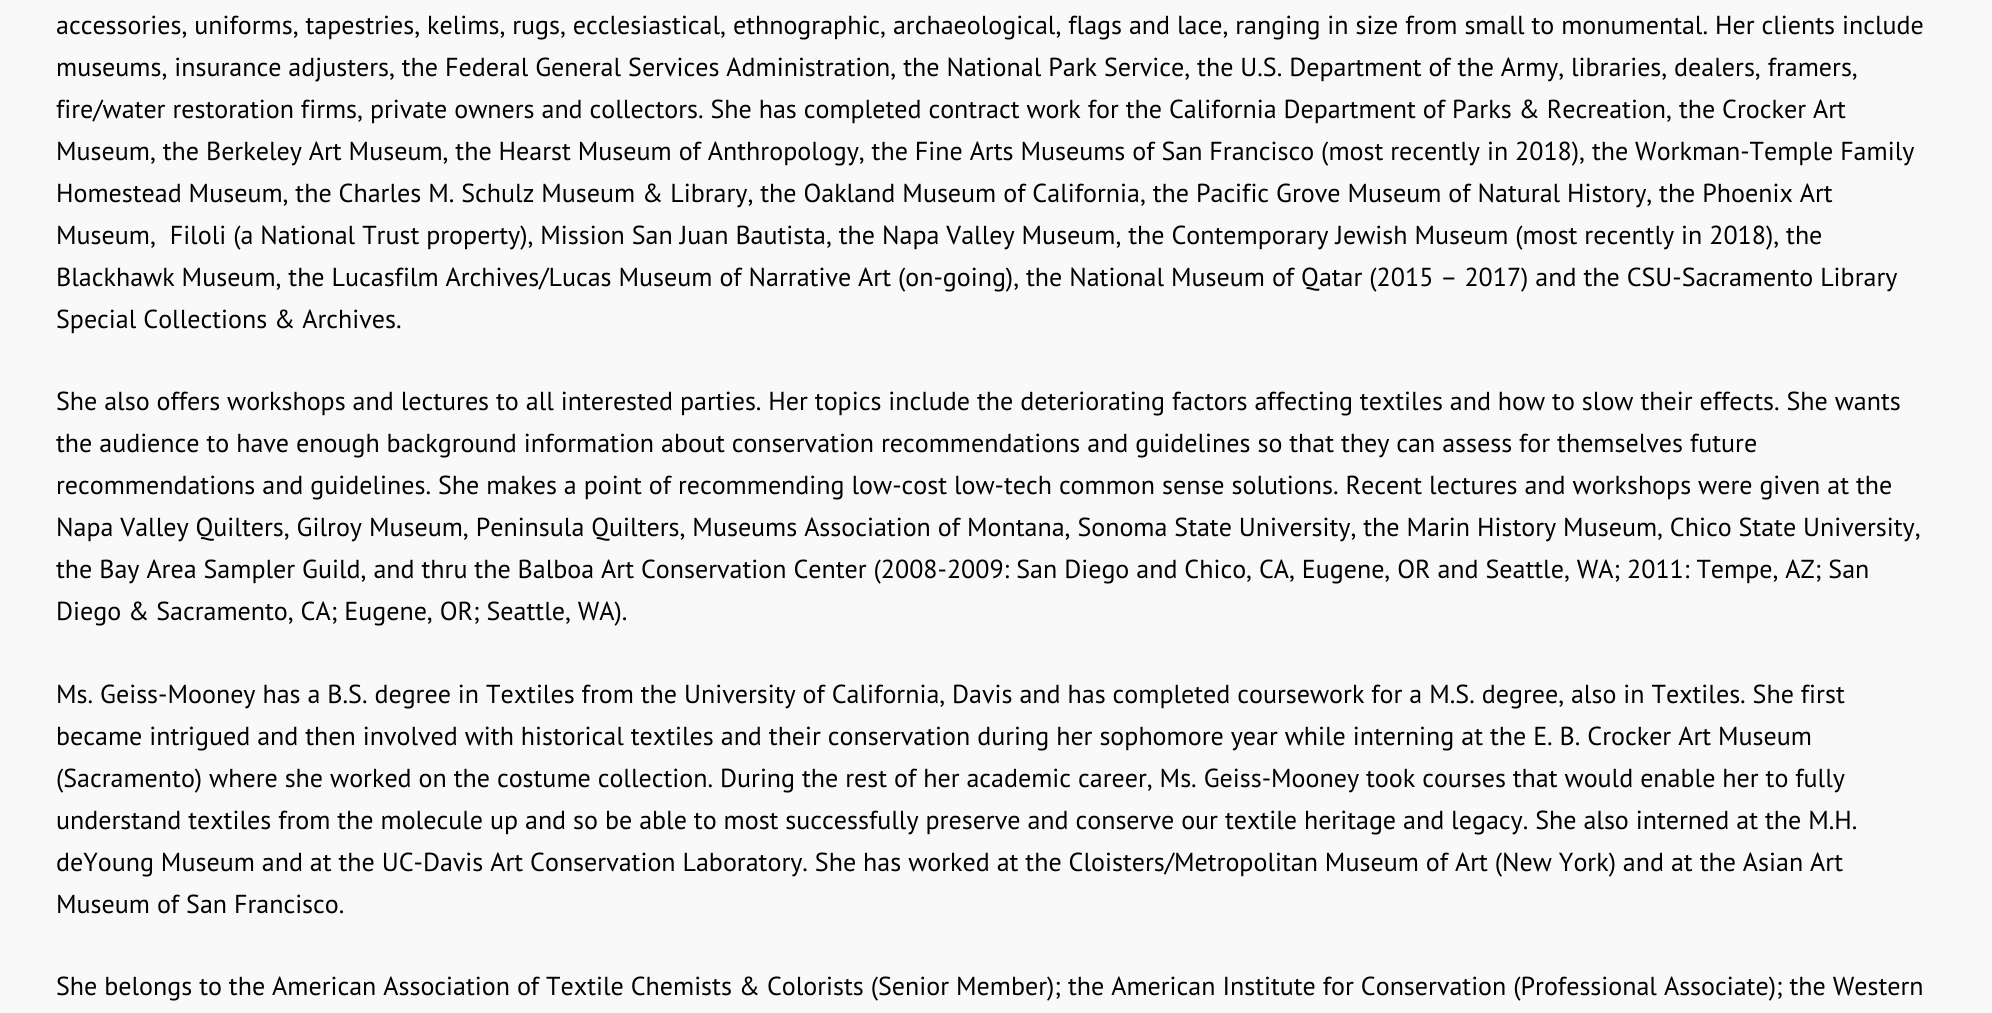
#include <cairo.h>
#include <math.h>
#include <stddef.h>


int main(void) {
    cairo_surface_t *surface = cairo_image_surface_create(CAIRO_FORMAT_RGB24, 1992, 1013);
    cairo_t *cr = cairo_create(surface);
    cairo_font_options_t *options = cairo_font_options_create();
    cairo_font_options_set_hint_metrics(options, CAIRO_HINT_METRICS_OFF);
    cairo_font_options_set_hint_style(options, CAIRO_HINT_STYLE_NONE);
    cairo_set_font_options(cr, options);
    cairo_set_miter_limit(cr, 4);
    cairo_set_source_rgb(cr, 0.973, 0.973, 0.973);
    cairo_paint(cr);
    cairo_select_font_face(cr, "PT Sans", CAIRO_FONT_SLANT_NORMAL, CAIRO_FONT_WEIGHT_NORMAL);
    cairo_set_font_size(cr, 26.02);
    cairo_set_source_rgb(cr, 0, 0, 0);
    cairo_move_to(cr, 56, 34);
    cairo_show_text(cr, "accessories, uniforms, tapestries, kelims, rugs, ecclesiastical, ethnographic, archaeological, flags and lace, ranging in size from small to monumental. Her clients include");
    cairo_move_to(cr, 56, 76);
    cairo_show_text(cr, "museums, insurance adjusters, the Federal General Services Administration, the National Park Service, the U.S. Department of the Army, libraries, dealers, framers,");
    cairo_move_to(cr, 56, 118);
    cairo_show_text(cr, "fire/water restoration firms, private owners and collectors. She has completed contract work for the California Department of Parks & Recreation, the Crocker Art");
    cairo_move_to(cr, 56, 160);
    cairo_show_text(cr, "Museum, the Berkeley Art Museum, the Hearst Museum of Anthropology, the Fine Arts Museums of San Francisco (most recently in 2018), the Workman-Temple Family");
    cairo_move_to(cr, 56, 202);
    cairo_show_text(cr, "Homestead Museum, the Charles M. Schulz Museum & Library, the Oakland Museum of California, the Pacific Grove Museum of Natural History, the Phoenix Art");
    cairo_move_to(cr, 56, 244);
    cairo_show_text(cr, "Museum,  Filoli (a National Trust property), Mission San Juan Bautista, the Napa Valley Museum, the Contemporary Jewish Museum (most recently in 2018), the");
    cairo_move_to(cr, 56, 286);
    cairo_show_text(cr, "Blackhawk Museum, the Lucasfilm Archives/Lucas Museum of Narrative Art (on-going), the National Museum of Qatar (2015 – 2017) and the CSU-Sacramento Library");
    cairo_move_to(cr, 56, 328);
    cairo_show_text(cr, "Special Collections & Archives.");
    cairo_move_to(cr, 56, 410);
    cairo_show_text(cr, "She also offers workshops and lectures to all interested parties. Her topics include the deteriorating factors affecting textiles and how to slow their effects. She wants");
    cairo_move_to(cr, 56, 452);
    cairo_show_text(cr, "the audience to have enough background information about conservation recommendations and guidelines so that they can assess for themselves future");
    cairo_move_to(cr, 56, 494);
    cairo_show_text(cr, "recommendations and guidelines. She makes a point of recommending low-cost low-tech common sense solutions. Recent lectures and workshops were given at the");
    cairo_move_to(cr, 56, 536);
    cairo_show_text(cr, "Napa Valley Quilters, Gilroy Museum, Peninsula Quilters, Museums Association of Montana, Sonoma State University, the Marin History Museum, Chico State University,");
    cairo_move_to(cr, 56, 578);
    cairo_show_text(cr, "the Bay Area Sampler Guild, and thru the Balboa Art Conservation Center (2008-2009: San Diego and Chico, CA, Eugene, OR and Seattle, WA; 2011: Tempe, AZ; San");
    cairo_move_to(cr, 56, 620);
    cairo_show_text(cr, "Diego & Sacramento, CA; Eugene, OR; Seattle, WA).");
    cairo_move_to(cr, 56, 703);
    cairo_show_text(cr, "Ms. Geiss-Mooney has a B.S. degree in Textiles from the University of California, Davis and has completed coursework for a M.S. degree, also in Textiles. She first");
    cairo_move_to(cr, 56, 745);
    cairo_show_text(cr, "became intrigued and then involved with historical textiles and their conservation during her sophomore year while interning at the E. B. Crocker Art Museum");
    cairo_move_to(cr, 56, 787);
    cairo_show_text(cr, "(Sacramento) where she worked on the costume collection. During the rest of her academic career, Ms. Geiss-Mooney took courses that would enable her to fully");
    cairo_move_to(cr, 56, 829);
    cairo_show_text(cr, "understand textiles from the molecule up and so be able to most successfully preserve and conserve our textile heritage and legacy. She also interned at the M.H.");
    cairo_move_to(cr, 56, 871);
    cairo_show_text(cr, "deYoung Museum and at the UC-Davis Art Conservation Laboratory. She has worked at the Cloisters/Metropolitan Museum of Art (New York) and at the Asian Art");
    cairo_move_to(cr, 56, 913);
    cairo_show_text(cr, "Museum of San Francisco.");
    cairo_move_to(cr, 56, 995);
    cairo_show_text(cr, "She belongs to the American Association of Textile Chemists & Colorists (Senior Member); the American Institute for Conservation (Professional Associate); the Western");
    cairo_surface_write_to_png(surface, "page.png");
    cairo_font_options_destroy(options);
    cairo_destroy(cr);
    cairo_surface_destroy(surface);
    return 0;
}
